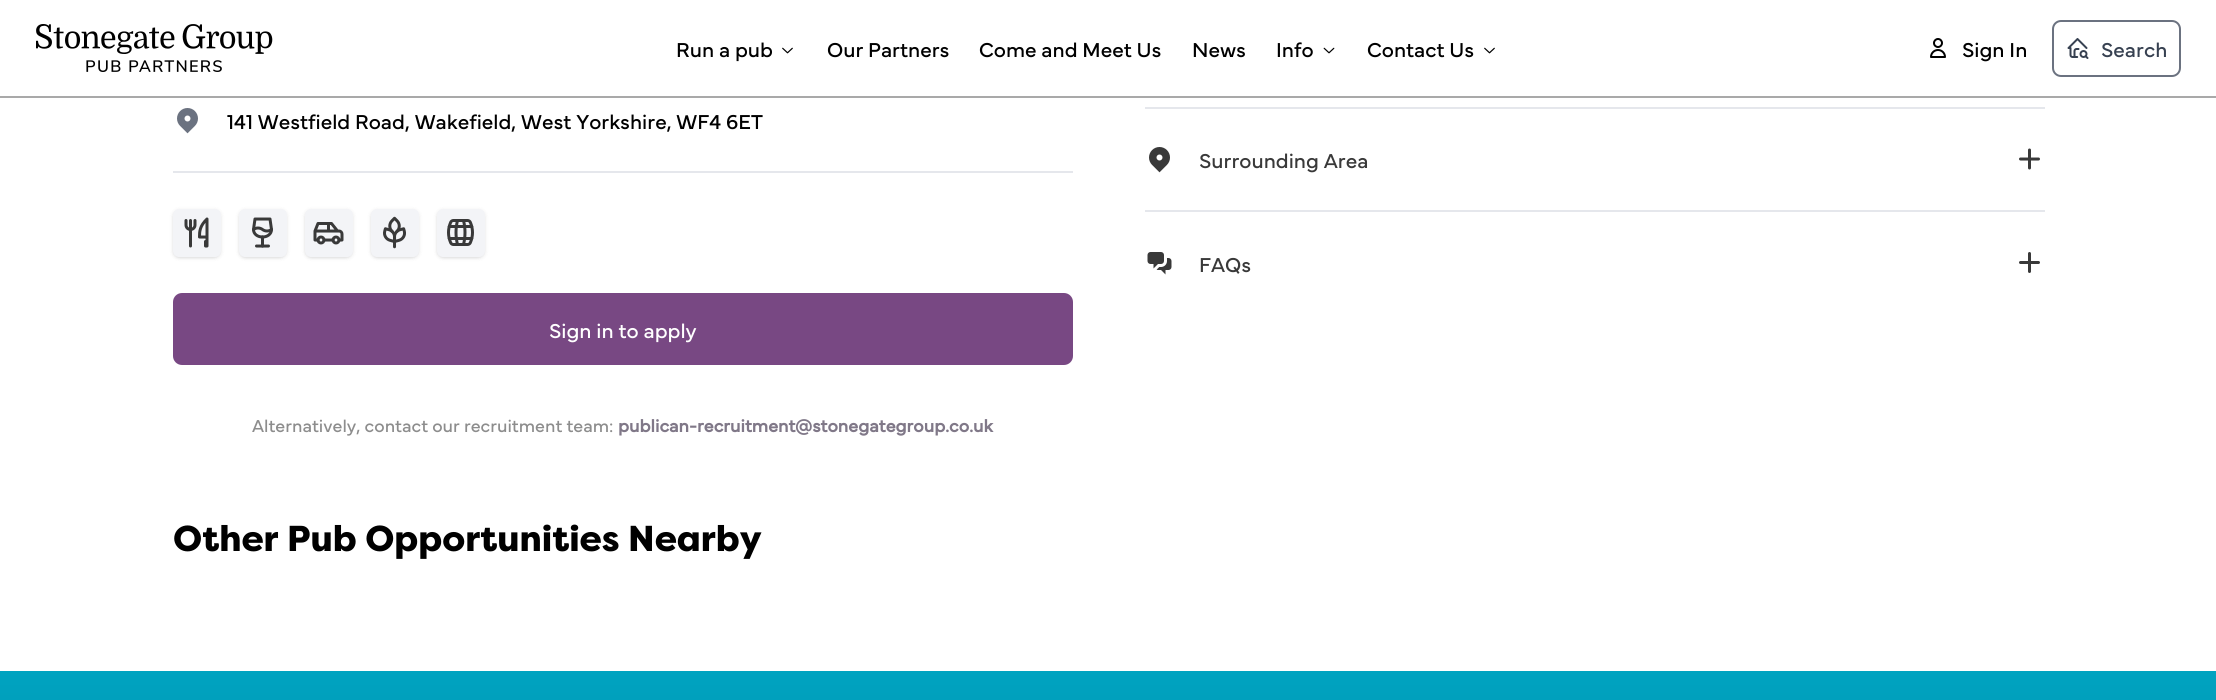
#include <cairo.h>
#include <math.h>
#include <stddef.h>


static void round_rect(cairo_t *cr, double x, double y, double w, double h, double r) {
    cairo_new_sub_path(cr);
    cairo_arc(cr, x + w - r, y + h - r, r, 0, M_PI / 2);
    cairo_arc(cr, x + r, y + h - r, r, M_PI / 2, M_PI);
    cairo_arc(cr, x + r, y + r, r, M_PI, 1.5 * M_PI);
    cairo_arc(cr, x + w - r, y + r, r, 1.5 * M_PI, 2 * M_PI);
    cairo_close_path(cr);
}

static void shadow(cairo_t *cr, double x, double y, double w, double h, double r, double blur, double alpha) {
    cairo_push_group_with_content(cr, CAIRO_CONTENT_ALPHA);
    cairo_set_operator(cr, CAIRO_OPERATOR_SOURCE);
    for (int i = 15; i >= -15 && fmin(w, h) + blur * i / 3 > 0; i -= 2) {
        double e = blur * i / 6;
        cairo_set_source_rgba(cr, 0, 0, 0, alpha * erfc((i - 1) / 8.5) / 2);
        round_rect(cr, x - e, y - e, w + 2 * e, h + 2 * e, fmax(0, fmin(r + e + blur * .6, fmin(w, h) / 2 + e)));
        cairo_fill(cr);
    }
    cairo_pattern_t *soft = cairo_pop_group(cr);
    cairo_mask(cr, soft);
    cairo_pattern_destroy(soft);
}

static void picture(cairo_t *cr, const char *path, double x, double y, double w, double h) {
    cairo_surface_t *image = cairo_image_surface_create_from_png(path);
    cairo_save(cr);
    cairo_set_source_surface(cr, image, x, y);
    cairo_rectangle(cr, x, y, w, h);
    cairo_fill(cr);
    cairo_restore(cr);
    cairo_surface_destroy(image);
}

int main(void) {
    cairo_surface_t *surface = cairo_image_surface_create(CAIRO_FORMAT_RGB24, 2216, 700);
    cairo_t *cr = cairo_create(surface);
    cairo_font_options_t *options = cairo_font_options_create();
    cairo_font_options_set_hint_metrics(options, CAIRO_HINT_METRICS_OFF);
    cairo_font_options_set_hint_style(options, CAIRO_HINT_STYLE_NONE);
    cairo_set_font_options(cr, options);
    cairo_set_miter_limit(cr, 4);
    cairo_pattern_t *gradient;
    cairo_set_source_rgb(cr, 1, 1, 1);
    cairo_paint(cr);
    picture(cr, "img1.png", 36, 24, 237, 48);
    cairo_select_font_face(cr, "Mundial", CAIRO_FONT_SLANT_NORMAL, CAIRO_FONT_WEIGHT_NORMAL);
    cairo_set_font_size(cr, 21);
    cairo_set_source_rgb(cr, 0, 0, 0);
    cairo_move_to(cr, 676, 57);
    cairo_show_text(cr, "Run a pub");
    picture(cr, "img2.png", 782, 47, 11, 7);
    cairo_move_to(cr, 827, 57);
    cairo_show_text(cr, "Our Partners");
    cairo_move_to(cr, 979, 57);
    cairo_show_text(cr, "Come and Meet Us");
    cairo_move_to(cr, 1192, 57);
    cairo_show_text(cr, "News");
    cairo_move_to(cr, 1276, 57);
    cairo_show_text(cr, "Info");
    picture(cr, "img3.png", 1323, 47, 12, 7);
    cairo_move_to(cr, 1367, 57);
    cairo_show_text(cr, "Contact Us");
    picture(cr, "img2.png", 1484, 47, 11, 7);
    picture(cr, "img4.png", 1930, 38, 16, 20);
    cairo_move_to(cr, 1962, 57);
    cairo_show_text(cr, "Sign In");
    round_rect(cr, 2053, 21, 127, 55, 8);
    cairo_set_source_rgb(cr, 0.42, 0.447, 0.502);
    cairo_stroke(cr);
    picture(cr, "img5.png", 2067, 38, 22, 21);
    cairo_set_source_rgb(cr, 0.216, 0.255, 0.318);
    cairo_move_to(cr, 2101, 57);
    cairo_show_text(cr, "Search");
    cairo_set_source_rgb(cr, 0.663, 0.663, 0.663);
    cairo_rectangle(cr, 0, 96, 2216, 2);
    cairo_fill(cr);
    picture(cr, "img6.png", 177, 108, 21, 26);
    cairo_set_source_rgb(cr, 0, 0, 0);
    cairo_move_to(cr, 227, 129);
    cairo_show_text(cr, "141 Westfield Road, Wakefield, West Yorkshire, WF4 6ET");
    cairo_set_source_rgb(cr, 0.898, 0.906, 0.922);
    cairo_rectangle(cr, 173, 171, 900, 2);
    cairo_fill(cr);
    cairo_set_source_rgb(cr, 0, 0, 0);
    shadow(cr, 174, 212, 45, 45, 5, 1.5, 0.1);
    shadow(cr, 173, 210, 48, 48, 6, 2, 0.1);
    cairo_set_source_rgb(cr, 0.953, 0.957, 0.965);
    round_rect(cr, 173, 209, 48, 48, 6);
    cairo_fill(cr);
    picture(cr, "img7.png", 184, 217, 25, 31);
    cairo_set_source_rgb(cr, 0, 0, 0);
    shadow(cr, 240, 212, 45, 45, 5, 1.5, 0.1);
    shadow(cr, 239, 210, 48, 48, 6, 2, 0.1);
    cairo_set_source_rgb(cr, 0.953, 0.957, 0.965);
    round_rect(cr, 239, 209, 48, 48, 6);
    cairo_fill(cr);
    picture(cr, "img8.png", 252, 217, 21, 31);
    cairo_set_source_rgb(cr, 0, 0, 0);
    shadow(cr, 306, 212, 45, 45, 5, 1.5, 0.1);
    shadow(cr, 305, 210, 48, 48, 6, 2, 0.1);
    cairo_set_source_rgb(cr, 0.953, 0.957, 0.965);
    round_rect(cr, 305, 209, 48, 48, 6);
    cairo_fill(cr);
    picture(cr, "img9.png", 313, 222, 31, 23);
    cairo_set_source_rgb(cr, 0, 0, 0);
    shadow(cr, 372, 212, 45, 45, 5, 1.5, 0.1);
    shadow(cr, 371, 210, 48, 48, 6, 2, 0.1);
    cairo_set_source_rgb(cr, 0.953, 0.957, 0.965);
    round_rect(cr, 371, 209, 48, 48, 6);
    cairo_fill(cr);
    picture(cr, "img10.png", 383, 216, 23, 33);
    cairo_set_source_rgb(cr, 0, 0, 0);
    shadow(cr, 438, 212, 45, 45, 5, 1.5, 0.1);
    shadow(cr, 437, 210, 48, 48, 6, 2, 0.1);
    cairo_set_source_rgb(cr, 0.953, 0.957, 0.965);
    round_rect(cr, 437, 209, 48, 48, 6);
    cairo_fill(cr);
    picture(cr, "img11.png", 447, 219, 27, 27);
    cairo_set_source_rgb(cr, 0.471, 0.282, 0.514);
    round_rect(cr, 173, 293, 900, 72, 9);
    cairo_fill(cr);
    cairo_set_source_rgb(cr, 1, 1, 1);
    cairo_move_to(cr, 549, 338);
    cairo_show_text(cr, "Sign in to apply");
    cairo_set_font_size(cr, 18);
    cairo_set_source_rgb(cr, 0.553, 0.553, 0.553);
    cairo_move_to(cr, 252, 432);
    cairo_show_text(cr, "Alternatively, contact our recruitment team:");
    cairo_select_font_face(cr, "Mundial", CAIRO_FONT_SLANT_NORMAL, CAIRO_FONT_WEIGHT_BOLD);
    cairo_set_source_rgb(cr, 0.502, 0.471, 0.533);
    cairo_move_to(cr, 618, 432);
    cairo_show_text(cr, "publican-recruitment@stonegategroup.co.uk");
    cairo_set_source_rgb(cr, 0.898, 0.906, 0.922);
    cairo_rectangle(cr, 1145, 107, 900, 2);
    cairo_fill(cr);
    picture(cr, "img12.png", 1149, 147, 21, 26);
    cairo_select_font_face(cr, "Mundial", CAIRO_FONT_SLANT_NORMAL, CAIRO_FONT_WEIGHT_NORMAL);
    cairo_set_font_size(cr, 21);
    cairo_set_source_rgb(cr, 0.224, 0.224, 0.224);
    cairo_move_to(cr, 1199, 168);
    cairo_show_text(cr, "Surrounding Area");
    picture(cr, "img13.png", 2019, 148, 21, 22);
    cairo_set_source_rgb(cr, 0.898, 0.906, 0.922);
    cairo_rectangle(cr, 1145, 210, 900, 2);
    cairo_fill(cr);
    picture(cr, "img14.png", 1147, 252, 25, 23);
    cairo_set_source_rgb(cr, 0.224, 0.224, 0.224);
    cairo_move_to(cr, 1199, 272);
    cairo_show_text(cr, "FAQs");
    picture(cr, "img15.png", 2019, 252, 21, 21);
    cairo_select_font_face(cr, "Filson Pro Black", CAIRO_FONT_SLANT_NORMAL, CAIRO_FONT_WEIGHT_NORMAL);
    cairo_set_font_size(cr, 36);
    cairo_set_source_rgb(cr, 0, 0, 0);
    cairo_move_to(cr, 173, 551);
    cairo_show_text(cr, "Other Pub Opportunities Nearby");
    gradient = cairo_pattern_create_linear(1109, 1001, 1109, 671);
    cairo_pattern_add_color_stop_rgba(gradient, 0, 0.012, 0.506, 0.608, 1);
    cairo_pattern_add_color_stop_rgba(gradient, 1, 0, 0.639, 0.753, 1);
    cairo_set_source(cr, gradient);
    cairo_pattern_destroy(gradient);
    cairo_rectangle(cr, 0, 671, 2216, 29);
    cairo_fill(cr);
    cairo_surface_write_to_png(surface, "page.png");
    cairo_font_options_destroy(options);
    cairo_destroy(cr);
    cairo_surface_destroy(surface);
    return 0;
}
